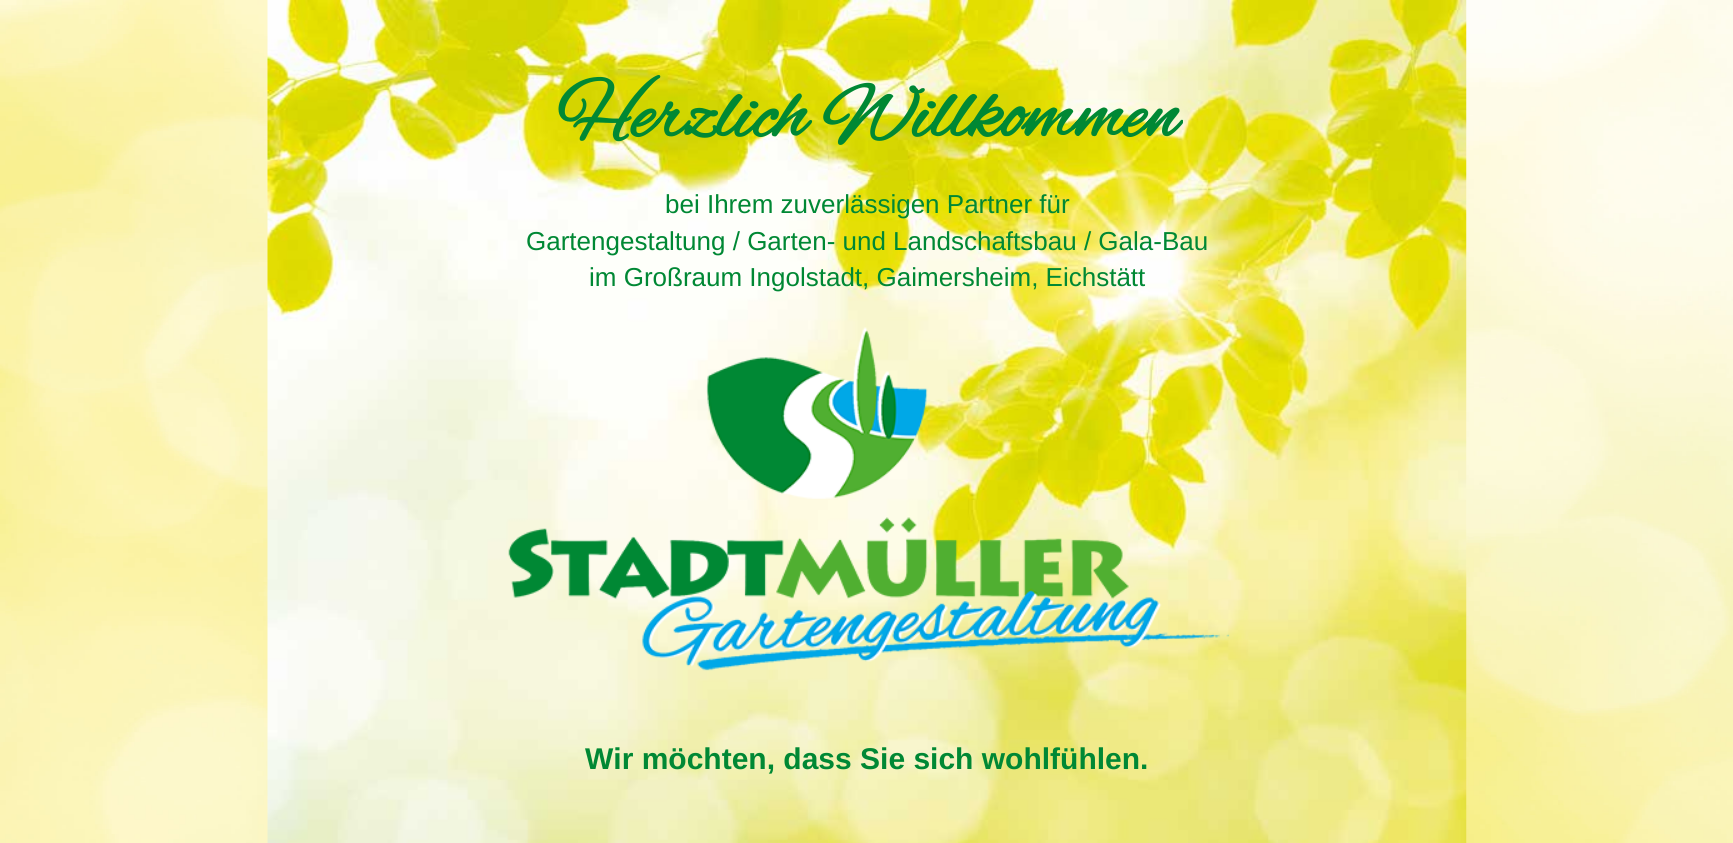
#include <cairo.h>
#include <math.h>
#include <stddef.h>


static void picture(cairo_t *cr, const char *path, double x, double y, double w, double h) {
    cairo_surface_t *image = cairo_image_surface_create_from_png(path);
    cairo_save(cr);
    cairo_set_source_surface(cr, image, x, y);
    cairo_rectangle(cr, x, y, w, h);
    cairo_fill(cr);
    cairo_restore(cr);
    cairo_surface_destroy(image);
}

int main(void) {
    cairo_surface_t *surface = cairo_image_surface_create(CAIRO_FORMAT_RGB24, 1733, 843);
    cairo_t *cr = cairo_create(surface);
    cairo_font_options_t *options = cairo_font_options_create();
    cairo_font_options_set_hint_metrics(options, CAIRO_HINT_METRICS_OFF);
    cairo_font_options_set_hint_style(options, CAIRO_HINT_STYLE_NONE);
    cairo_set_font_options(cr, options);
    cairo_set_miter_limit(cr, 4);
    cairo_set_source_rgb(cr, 1, 1, 1);
    cairo_paint(cr);
    picture(cr, "img1.png", 0, 0, 1733, 843);
    picture(cr, "img2.png", 267, 0, 1200, 843);
    cairo_select_font_face(cr, "Alex Brush", CAIRO_FONT_SLANT_NORMAL, CAIRO_FONT_WEIGHT_BOLD);
    cairo_set_font_size(cr, 80);
    cairo_set_source_rgb(cr, 0, 0.533, 0.204);
    cairo_move_to(cr, 557, 136);
    cairo_show_text(cr, "Herzlich Willkommen");
    cairo_select_font_face(cr, "Liberation Sans", CAIRO_FONT_SLANT_NORMAL, CAIRO_FONT_WEIGHT_NORMAL);
    cairo_set_font_size(cr, 26);
    cairo_move_to(cr, 665, 213);
    cairo_show_text(cr, "bei Ihrem zuverlässigen Partner für");
    cairo_move_to(cr, 526, 250);
    cairo_show_text(cr, "Gartengestaltung / Garten- und Landschaftsbau / Gala-Bau");
    cairo_move_to(cr, 589, 286);
    cairo_show_text(cr, "im Großraum Ingolstadt, Gaimersheim, Eichstätt");
    picture(cr, "img3.png", 508, 327, 722, 344);
    cairo_select_font_face(cr, "Liberation Sans", CAIRO_FONT_SLANT_NORMAL, CAIRO_FONT_WEIGHT_BOLD);
    cairo_set_font_size(cr, 30);
    cairo_move_to(cr, 585, 769);
    cairo_show_text(cr, "Wir möchten, dass Sie sich wohlfühlen.");
    cairo_surface_write_to_png(surface, "page.png");
    cairo_font_options_destroy(options);
    cairo_destroy(cr);
    cairo_surface_destroy(surface);
    return 0;
}
